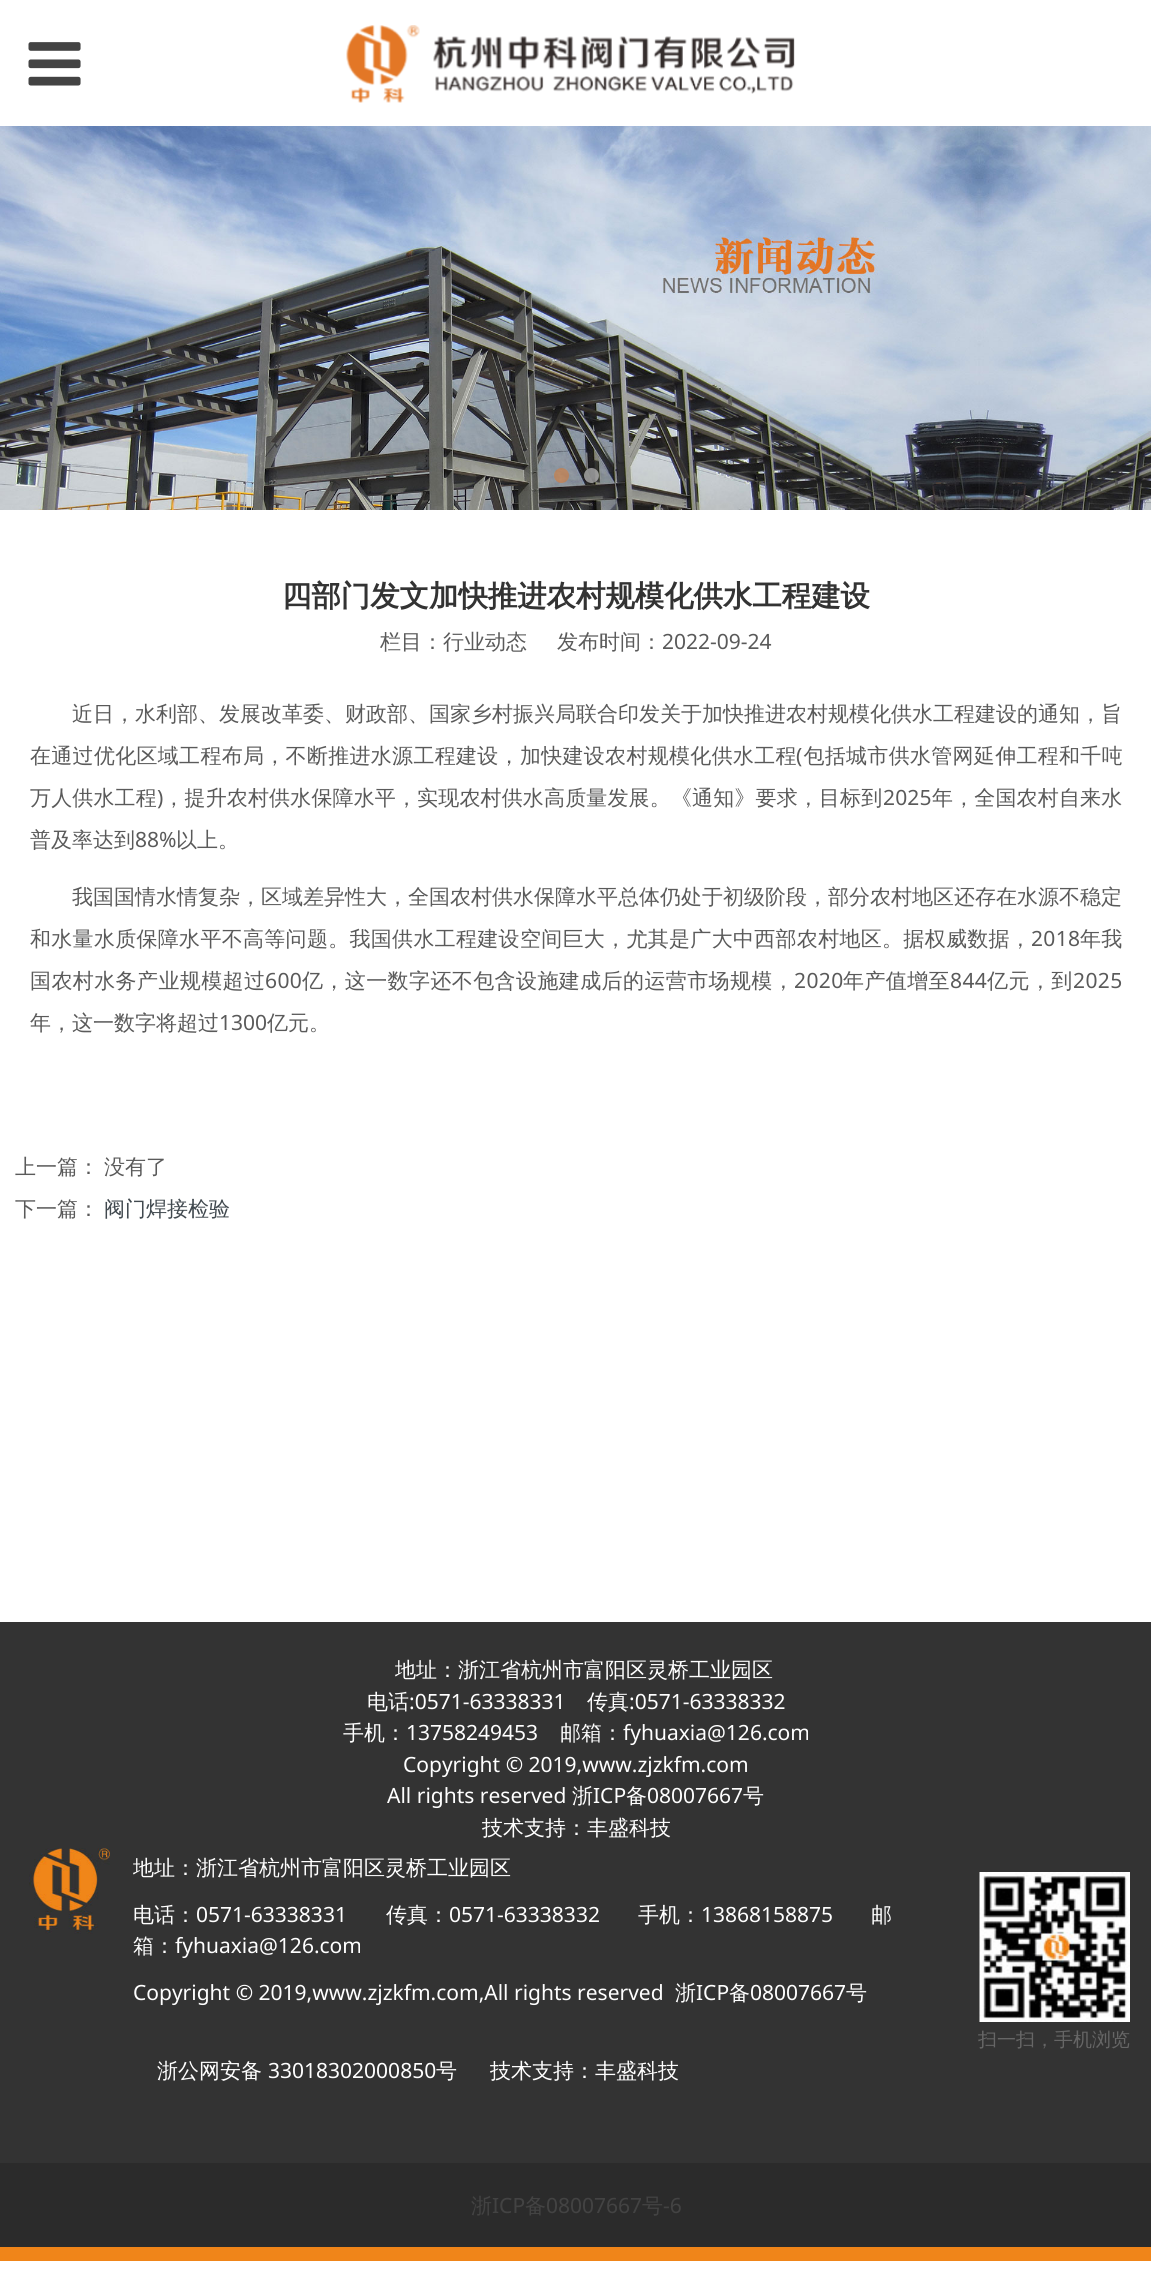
#include <cairo.h>
#include <math.h>
#include <stddef.h>


static void spaced_text(cairo_t *cr, double x, double y, const char *s, double letter, double word) {
    cairo_move_to(cr, x, y);
    while (*s) {
        char ch[5] = {0};
        int n = 0;
        do ch[n++] = *s++; while ((*s & 0xC0) == 0x80);
        cairo_show_text(cr, ch);
        cairo_rel_move_to(cr, letter + word * (*ch == ' '), 0);
    }
}

static void picture(cairo_t *cr, const char *path, double x, double y, double w, double h) {
    cairo_surface_t *image = cairo_image_surface_create_from_png(path);
    cairo_save(cr);
    cairo_set_source_surface(cr, image, x, y);
    cairo_rectangle(cr, x, y, w, h);
    cairo_fill(cr);
    cairo_restore(cr);
    cairo_surface_destroy(image);
}

int main(void) {
    cairo_surface_t *surface = cairo_image_surface_create(CAIRO_FORMAT_RGB24, 1151, 2271);
    cairo_t *cr = cairo_create(surface);
    cairo_font_options_t *options = cairo_font_options_create();
    cairo_font_options_set_hint_metrics(options, CAIRO_HINT_METRICS_OFF);
    cairo_font_options_set_hint_style(options, CAIRO_HINT_STYLE_NONE);
    cairo_set_font_options(cr, options);
    cairo_set_miter_limit(cr, 4);
    cairo_set_source_rgb(cr, 1, 1, 1);
    cairo_paint(cr);
    picture(cr, "img1.png", 28, 42, 53, 44);
    picture(cr, "img2.png", 346, 25, 449, 78);
    picture(cr, "img3.png", 0, 126, 1151, 384);
    cairo_set_source_rgba(cr, 0.89, 0.467, 0.149, 0.5);
    cairo_arc(cr, 561.5, 475.5, 7.5, 0, 2 * M_PI);
    cairo_fill(cr);
    cairo_set_source_rgba(cr, 1, 1, 1, 0.5);
    cairo_arc(cr, 591.5, 475.5, 7.5, 0, 2 * M_PI);
    cairo_fill(cr);
    cairo_select_font_face(cr, "WenQuanYi Zen Hei", CAIRO_FONT_SLANT_NORMAL, CAIRO_FONT_WEIGHT_BOLD);
    cairo_set_font_size(cr, 29.4);
    cairo_set_source_rgb(cr, 0.2, 0.2, 0.2);
    cairo_move_to(cr, 282, 606);
    cairo_show_text(cr, "四部门发文加快推进农村规模化供水工程建设");
    cairo_select_font_face(cr, "WenQuanYi Zen Hei Medium", CAIRO_FONT_SLANT_NORMAL, CAIRO_FONT_WEIGHT_NORMAL);
    cairo_set_font_size(cr, 21);
    cairo_set_source_rgb(cr, 0.353, 0.353, 0.353);
    cairo_move_to(cr, 380, 649);
    cairo_show_text(cr, "栏目：行业动态");
    cairo_move_to(cr, 557, 649);
    cairo_show_text(cr, "发布时间：");
    cairo_select_font_face(cr, "Noto Sans", CAIRO_FONT_SLANT_NORMAL, CAIRO_FONT_WEIGHT_NORMAL);
    cairo_move_to(cr, 662, 649);
    cairo_show_text(cr, "2022-09-24");
    cairo_select_font_face(cr, "WenQuanYi Zen Hei Medium", CAIRO_FONT_SLANT_NORMAL, CAIRO_FONT_WEIGHT_NORMAL);
    cairo_move_to(cr, 72, 721);
    cairo_show_text(cr, "近日，水利部、发展改革委、财政部、国家乡村振兴局联合印发关于加快推进农村规模化供水工程建设的通知，旨");
    spaced_text(cr, 30, 763, "在通过优化区域工程布局，不断推进水源工程建设，加快建设农村规模化供水工程 包括城市供水管网延伸工程和千吨", 0.3, 0);
    cairo_select_font_face(cr, "Noto Sans", CAIRO_FONT_SLANT_NORMAL, CAIRO_FONT_WEIGHT_NORMAL);
    spaced_text(cr, 796, 763, "(", 0.3, 0);
    cairo_select_font_face(cr, "WenQuanYi Zen Hei Medium", CAIRO_FONT_SLANT_NORMAL, CAIRO_FONT_WEIGHT_NORMAL);
    spaced_text(cr, 30, 805, "万人供水工程 ，提升农村供水保障水平，实现农村供水高质量发展。《通知》要求，目标到", 0.15, 0);
    cairo_select_font_face(cr, "Noto Sans", CAIRO_FONT_SLANT_NORMAL, CAIRO_FONT_WEIGHT_NORMAL);
    spaced_text(cr, 883, 805, "2025", 0.15, 0);
    cairo_select_font_face(cr, "WenQuanYi Zen Hei Medium", CAIRO_FONT_SLANT_NORMAL, CAIRO_FONT_WEIGHT_NORMAL);
    spaced_text(cr, 932, 805, "年，全国农村自来水", 0.15, 0);
    cairo_select_font_face(cr, "Noto Sans", CAIRO_FONT_SLANT_NORMAL, CAIRO_FONT_WEIGHT_NORMAL);
    spaced_text(cr, 157, 805, ")", 0.15, 0);
    cairo_select_font_face(cr, "WenQuanYi Zen Hei Medium", CAIRO_FONT_SLANT_NORMAL, CAIRO_FONT_WEIGHT_NORMAL);
    cairo_move_to(cr, 30, 847);
    cairo_show_text(cr, "普及率达到");
    cairo_select_font_face(cr, "Noto Sans", CAIRO_FONT_SLANT_NORMAL, CAIRO_FONT_WEIGHT_NORMAL);
    cairo_move_to(cr, 135, 847);
    cairo_show_text(cr, "88%");
    cairo_select_font_face(cr, "WenQuanYi Zen Hei Medium", CAIRO_FONT_SLANT_NORMAL, CAIRO_FONT_WEIGHT_NORMAL);
    cairo_move_to(cr, 176, 847);
    cairo_show_text(cr, "以上。");
    cairo_move_to(cr, 72, 904);
    cairo_show_text(cr, "我国国情水情复杂，区域差异性大，全国农村供水保障水平总体仍处于初级阶段，部分农村地区还存在水源不稳定");
    spaced_text(cr, 30, 946, "和水量水质保障水平不高等问题。我国供水工程建设空间巨大，尤其是广大中西部农村地区。据权威数据，", 0.3, 0);
    cairo_select_font_face(cr, "Noto Sans", CAIRO_FONT_SLANT_NORMAL, CAIRO_FONT_WEIGHT_NORMAL);
    spaced_text(cr, 1031, 946, "2018", 0.3, 0);
    cairo_select_font_face(cr, "WenQuanYi Zen Hei Medium", CAIRO_FONT_SLANT_NORMAL, CAIRO_FONT_WEIGHT_NORMAL);
    spaced_text(cr, 1080, 946, "年我", 0.3, 0);
    spaced_text(cr, 30, 988, "国农村水务产业规模超过", 0.4, 0);
    cairo_select_font_face(cr, "Noto Sans", CAIRO_FONT_SLANT_NORMAL, CAIRO_FONT_WEIGHT_NORMAL);
    spaced_text(cr, 265, 988, "600", 0.4, 0);
    cairo_select_font_face(cr, "WenQuanYi Zen Hei Medium", CAIRO_FONT_SLANT_NORMAL, CAIRO_FONT_WEIGHT_NORMAL);
    spaced_text(cr, 302, 988, "亿，这一数字还不包含设施建成后的运营市场规模，", 0.4, 0);
    cairo_select_font_face(cr, "Noto Sans", CAIRO_FONT_SLANT_NORMAL, CAIRO_FONT_WEIGHT_NORMAL);
    spaced_text(cr, 794, 988, "2020", 0.4, 0);
    cairo_select_font_face(cr, "WenQuanYi Zen Hei Medium", CAIRO_FONT_SLANT_NORMAL, CAIRO_FONT_WEIGHT_NORMAL);
    spaced_text(cr, 843, 988, "年产值增至", 0.4, 0);
    cairo_select_font_face(cr, "Noto Sans", CAIRO_FONT_SLANT_NORMAL, CAIRO_FONT_WEIGHT_NORMAL);
    spaced_text(cr, 950, 988, "844", 0.4, 0);
    cairo_select_font_face(cr, "WenQuanYi Zen Hei Medium", CAIRO_FONT_SLANT_NORMAL, CAIRO_FONT_WEIGHT_NORMAL);
    spaced_text(cr, 987, 988, "亿元，到", 0.4, 0);
    cairo_select_font_face(cr, "Noto Sans", CAIRO_FONT_SLANT_NORMAL, CAIRO_FONT_WEIGHT_NORMAL);
    spaced_text(cr, 1073, 988, "2025", 0.4, 0);
    cairo_select_font_face(cr, "WenQuanYi Zen Hei Medium", CAIRO_FONT_SLANT_NORMAL, CAIRO_FONT_WEIGHT_NORMAL);
    cairo_move_to(cr, 30, 1030);
    cairo_show_text(cr, "年，这一数字将超过");
    cairo_select_font_face(cr, "Noto Sans", CAIRO_FONT_SLANT_NORMAL, CAIRO_FONT_WEIGHT_NORMAL);
    cairo_move_to(cr, 219, 1030);
    cairo_show_text(cr, "1300");
    cairo_select_font_face(cr, "WenQuanYi Zen Hei Medium", CAIRO_FONT_SLANT_NORMAL, CAIRO_FONT_WEIGHT_NORMAL);
    cairo_move_to(cr, 267, 1030);
    cairo_show_text(cr, "亿元。");
    cairo_move_to(cr, 15, 1174);
    cairo_show_text(cr, "上一篇：");
    cairo_move_to(cr, 104, 1174);
    cairo_show_text(cr, "没有了");
    cairo_move_to(cr, 15, 1216);
    cairo_show_text(cr, "下一篇：");
    cairo_set_source_rgb(cr, 0.255, 0.286, 0.31);
    cairo_move_to(cr, 104, 1216);
    cairo_show_text(cr, "阀门焊接检验");
    cairo_set_source_rgb(cr, 0.941, 0.522, 0.098);
    cairo_rectangle(cr, 0, 2247, 1151, 14);
    cairo_fill(cr);
    cairo_set_source_rgb(cr, 0.2, 0.2, 0.2);
    cairo_rectangle(cr, 0, 1622, 1151, 541);
    cairo_fill(cr);
    cairo_set_source_rgb(cr, 1, 1, 1);
    cairo_move_to(cr, 395, 1677);
    cairo_show_text(cr, "地址：浙江省杭州市富阳区灵桥工业园区");
    cairo_move_to(cr, 367, 1709);
    cairo_show_text(cr, "电话");
    cairo_select_font_face(cr, "Noto Sans", CAIRO_FONT_SLANT_NORMAL, CAIRO_FONT_WEIGHT_NORMAL);
    cairo_move_to(cr, 409, 1709);
    cairo_show_text(cr, ":0571-63338331");
    cairo_select_font_face(cr, "WenQuanYi Zen Hei Medium", CAIRO_FONT_SLANT_NORMAL, CAIRO_FONT_WEIGHT_NORMAL);
    cairo_move_to(cr, 587, 1709);
    cairo_show_text(cr, "传真");
    cairo_select_font_face(cr, "Noto Sans", CAIRO_FONT_SLANT_NORMAL, CAIRO_FONT_WEIGHT_NORMAL);
    cairo_move_to(cr, 629, 1709);
    cairo_show_text(cr, ":0571-63338332");
    cairo_select_font_face(cr, "WenQuanYi Zen Hei Medium", CAIRO_FONT_SLANT_NORMAL, CAIRO_FONT_WEIGHT_NORMAL);
    cairo_move_to(cr, 343, 1740);
    cairo_show_text(cr, "手机：");
    cairo_select_font_face(cr, "Noto Sans", CAIRO_FONT_SLANT_NORMAL, CAIRO_FONT_WEIGHT_NORMAL);
    cairo_move_to(cr, 406, 1740);
    cairo_show_text(cr, "13758249453");
    cairo_select_font_face(cr, "WenQuanYi Zen Hei Medium", CAIRO_FONT_SLANT_NORMAL, CAIRO_FONT_WEIGHT_NORMAL);
    cairo_move_to(cr, 560, 1740);
    cairo_show_text(cr, "邮箱：");
    cairo_select_font_face(cr, "Noto Sans", CAIRO_FONT_SLANT_NORMAL, CAIRO_FONT_WEIGHT_NORMAL);
    cairo_move_to(cr, 623, 1740);
    cairo_show_text(cr, "fyhuaxia@126.com");
    cairo_move_to(cr, 403, 1772);
    cairo_show_text(cr, "Copyright © 2019,www.zjzkfm.com");
    cairo_move_to(cr, 387, 1803);
    cairo_show_text(cr, "All rights reserved");
    cairo_select_font_face(cr, "WenQuanYi Zen Hei Medium", CAIRO_FONT_SLANT_NORMAL, CAIRO_FONT_WEIGHT_NORMAL);
    cairo_move_to(cr, 572, 1803);
    cairo_show_text(cr, "浙");
    cairo_select_font_face(cr, "Noto Sans", CAIRO_FONT_SLANT_NORMAL, CAIRO_FONT_WEIGHT_NORMAL);
    cairo_move_to(cr, 593, 1803);
    cairo_show_text(cr, "ICP");
    cairo_select_font_face(cr, "WenQuanYi Zen Hei Medium", CAIRO_FONT_SLANT_NORMAL, CAIRO_FONT_WEIGHT_NORMAL);
    cairo_move_to(cr, 626, 1803);
    cairo_show_text(cr, "备");
    cairo_select_font_face(cr, "Noto Sans", CAIRO_FONT_SLANT_NORMAL, CAIRO_FONT_WEIGHT_NORMAL);
    cairo_move_to(cr, 647, 1803);
    cairo_show_text(cr, "08007667");
    cairo_select_font_face(cr, "WenQuanYi Zen Hei Medium", CAIRO_FONT_SLANT_NORMAL, CAIRO_FONT_WEIGHT_NORMAL);
    cairo_move_to(cr, 743, 1803);
    cairo_show_text(cr, "号");
    cairo_move_to(cr, 482, 1835);
    cairo_show_text(cr, "技术支持：丰盛科技");
    picture(cr, "img4.png", 29, 1848, 81, 86);
    cairo_move_to(cr, 133, 1875);
    cairo_show_text(cr, "地址：浙江省杭州市富阳区灵桥工业园区");
    cairo_move_to(cr, 133, 1922);
    cairo_show_text(cr, "电话：");
    cairo_select_font_face(cr, "Noto Sans", CAIRO_FONT_SLANT_NORMAL, CAIRO_FONT_WEIGHT_NORMAL);
    cairo_move_to(cr, 196, 1922);
    cairo_show_text(cr, "0571-63338331");
    cairo_select_font_face(cr, "WenQuanYi Zen Hei Medium", CAIRO_FONT_SLANT_NORMAL, CAIRO_FONT_WEIGHT_NORMAL);
    cairo_move_to(cr, 386, 1922);
    cairo_show_text(cr, "传真：");
    cairo_select_font_face(cr, "Noto Sans", CAIRO_FONT_SLANT_NORMAL, CAIRO_FONT_WEIGHT_NORMAL);
    cairo_move_to(cr, 449, 1922);
    cairo_show_text(cr, "0571-63338332");
    cairo_select_font_face(cr, "WenQuanYi Zen Hei Medium", CAIRO_FONT_SLANT_NORMAL, CAIRO_FONT_WEIGHT_NORMAL);
    cairo_move_to(cr, 638, 1922);
    cairo_show_text(cr, "手机：");
    cairo_select_font_face(cr, "Noto Sans", CAIRO_FONT_SLANT_NORMAL, CAIRO_FONT_WEIGHT_NORMAL);
    cairo_move_to(cr, 701, 1922);
    cairo_show_text(cr, "13868158875");
    cairo_select_font_face(cr, "WenQuanYi Zen Hei Medium", CAIRO_FONT_SLANT_NORMAL, CAIRO_FONT_WEIGHT_NORMAL);
    cairo_move_to(cr, 871, 1922);
    cairo_show_text(cr, "邮");
    cairo_move_to(cr, 133, 1953);
    cairo_show_text(cr, "箱：");
    cairo_select_font_face(cr, "Noto Sans", CAIRO_FONT_SLANT_NORMAL, CAIRO_FONT_WEIGHT_NORMAL);
    cairo_move_to(cr, 175, 1953);
    cairo_show_text(cr, "fyhuaxia@126.com");
    cairo_move_to(cr, 133, 2000);
    cairo_show_text(cr, "Copyright © 2019,www.zjzkfm.com,All rights reserved");
    cairo_select_font_face(cr, "WenQuanYi Zen Hei Medium", CAIRO_FONT_SLANT_NORMAL, CAIRO_FONT_WEIGHT_NORMAL);
    cairo_move_to(cr, 675, 2000);
    cairo_show_text(cr, "浙");
    cairo_select_font_face(cr, "Noto Sans", CAIRO_FONT_SLANT_NORMAL, CAIRO_FONT_WEIGHT_NORMAL);
    cairo_move_to(cr, 696, 2000);
    cairo_show_text(cr, "ICP");
    cairo_select_font_face(cr, "WenQuanYi Zen Hei Medium", CAIRO_FONT_SLANT_NORMAL, CAIRO_FONT_WEIGHT_NORMAL);
    cairo_move_to(cr, 729, 2000);
    cairo_show_text(cr, "备");
    cairo_select_font_face(cr, "Noto Sans", CAIRO_FONT_SLANT_NORMAL, CAIRO_FONT_WEIGHT_NORMAL);
    cairo_move_to(cr, 750, 2000);
    cairo_show_text(cr, "08007667");
    cairo_select_font_face(cr, "WenQuanYi Zen Hei Medium", CAIRO_FONT_SLANT_NORMAL, CAIRO_FONT_WEIGHT_NORMAL);
    cairo_move_to(cr, 846, 2000);
    cairo_show_text(cr, "号");
    cairo_move_to(cr, 157, 2078);
    cairo_show_text(cr, "浙公网安备");
    cairo_select_font_face(cr, "Noto Sans", CAIRO_FONT_SLANT_NORMAL, CAIRO_FONT_WEIGHT_NORMAL);
    cairo_move_to(cr, 268, 2078);
    cairo_show_text(cr, "33018302000850");
    cairo_select_font_face(cr, "WenQuanYi Zen Hei Medium", CAIRO_FONT_SLANT_NORMAL, CAIRO_FONT_WEIGHT_NORMAL);
    cairo_move_to(cr, 436, 2078);
    cairo_show_text(cr, "号");
    cairo_move_to(cr, 490, 2078);
    cairo_show_text(cr, "技术支持：丰盛科技");
    picture(cr, "img5.png", 979, 1872, 151, 150);
    cairo_set_font_size(cr, 19);
    cairo_set_source_rgb(cr, 0.4, 0.4, 0.4);
    cairo_move_to(cr, 978, 2046);
    cairo_show_text(cr, "扫一扫，手机浏览");
    cairo_set_source_rgb(cr, 0.169, 0.169, 0.169);
    cairo_rectangle(cr, 0, 2163, 1151, 84);
    cairo_fill(cr);
    cairo_set_font_size(cr, 21);
    cairo_set_source_rgb(cr, 0.263, 0.263, 0.263);
    cairo_move_to(cr, 471, 2213);
    cairo_show_text(cr, "浙");
    cairo_select_font_face(cr, "Noto Sans", CAIRO_FONT_SLANT_NORMAL, CAIRO_FONT_WEIGHT_NORMAL);
    cairo_move_to(cr, 492, 2213);
    cairo_show_text(cr, "ICP");
    cairo_select_font_face(cr, "WenQuanYi Zen Hei Medium", CAIRO_FONT_SLANT_NORMAL, CAIRO_FONT_WEIGHT_NORMAL);
    cairo_move_to(cr, 525, 2213);
    cairo_show_text(cr, "备");
    cairo_select_font_face(cr, "Noto Sans", CAIRO_FONT_SLANT_NORMAL, CAIRO_FONT_WEIGHT_NORMAL);
    cairo_move_to(cr, 546, 2213);
    cairo_show_text(cr, "08007667");
    cairo_select_font_face(cr, "WenQuanYi Zen Hei Medium", CAIRO_FONT_SLANT_NORMAL, CAIRO_FONT_WEIGHT_NORMAL);
    cairo_move_to(cr, 642, 2213);
    cairo_show_text(cr, "号");
    cairo_select_font_face(cr, "Noto Sans", CAIRO_FONT_SLANT_NORMAL, CAIRO_FONT_WEIGHT_NORMAL);
    cairo_move_to(cr, 663, 2213);
    cairo_show_text(cr, "-6");
    cairo_surface_write_to_png(surface, "page.png");
    cairo_font_options_destroy(options);
    cairo_destroy(cr);
    cairo_surface_destroy(surface);
    return 0;
}
